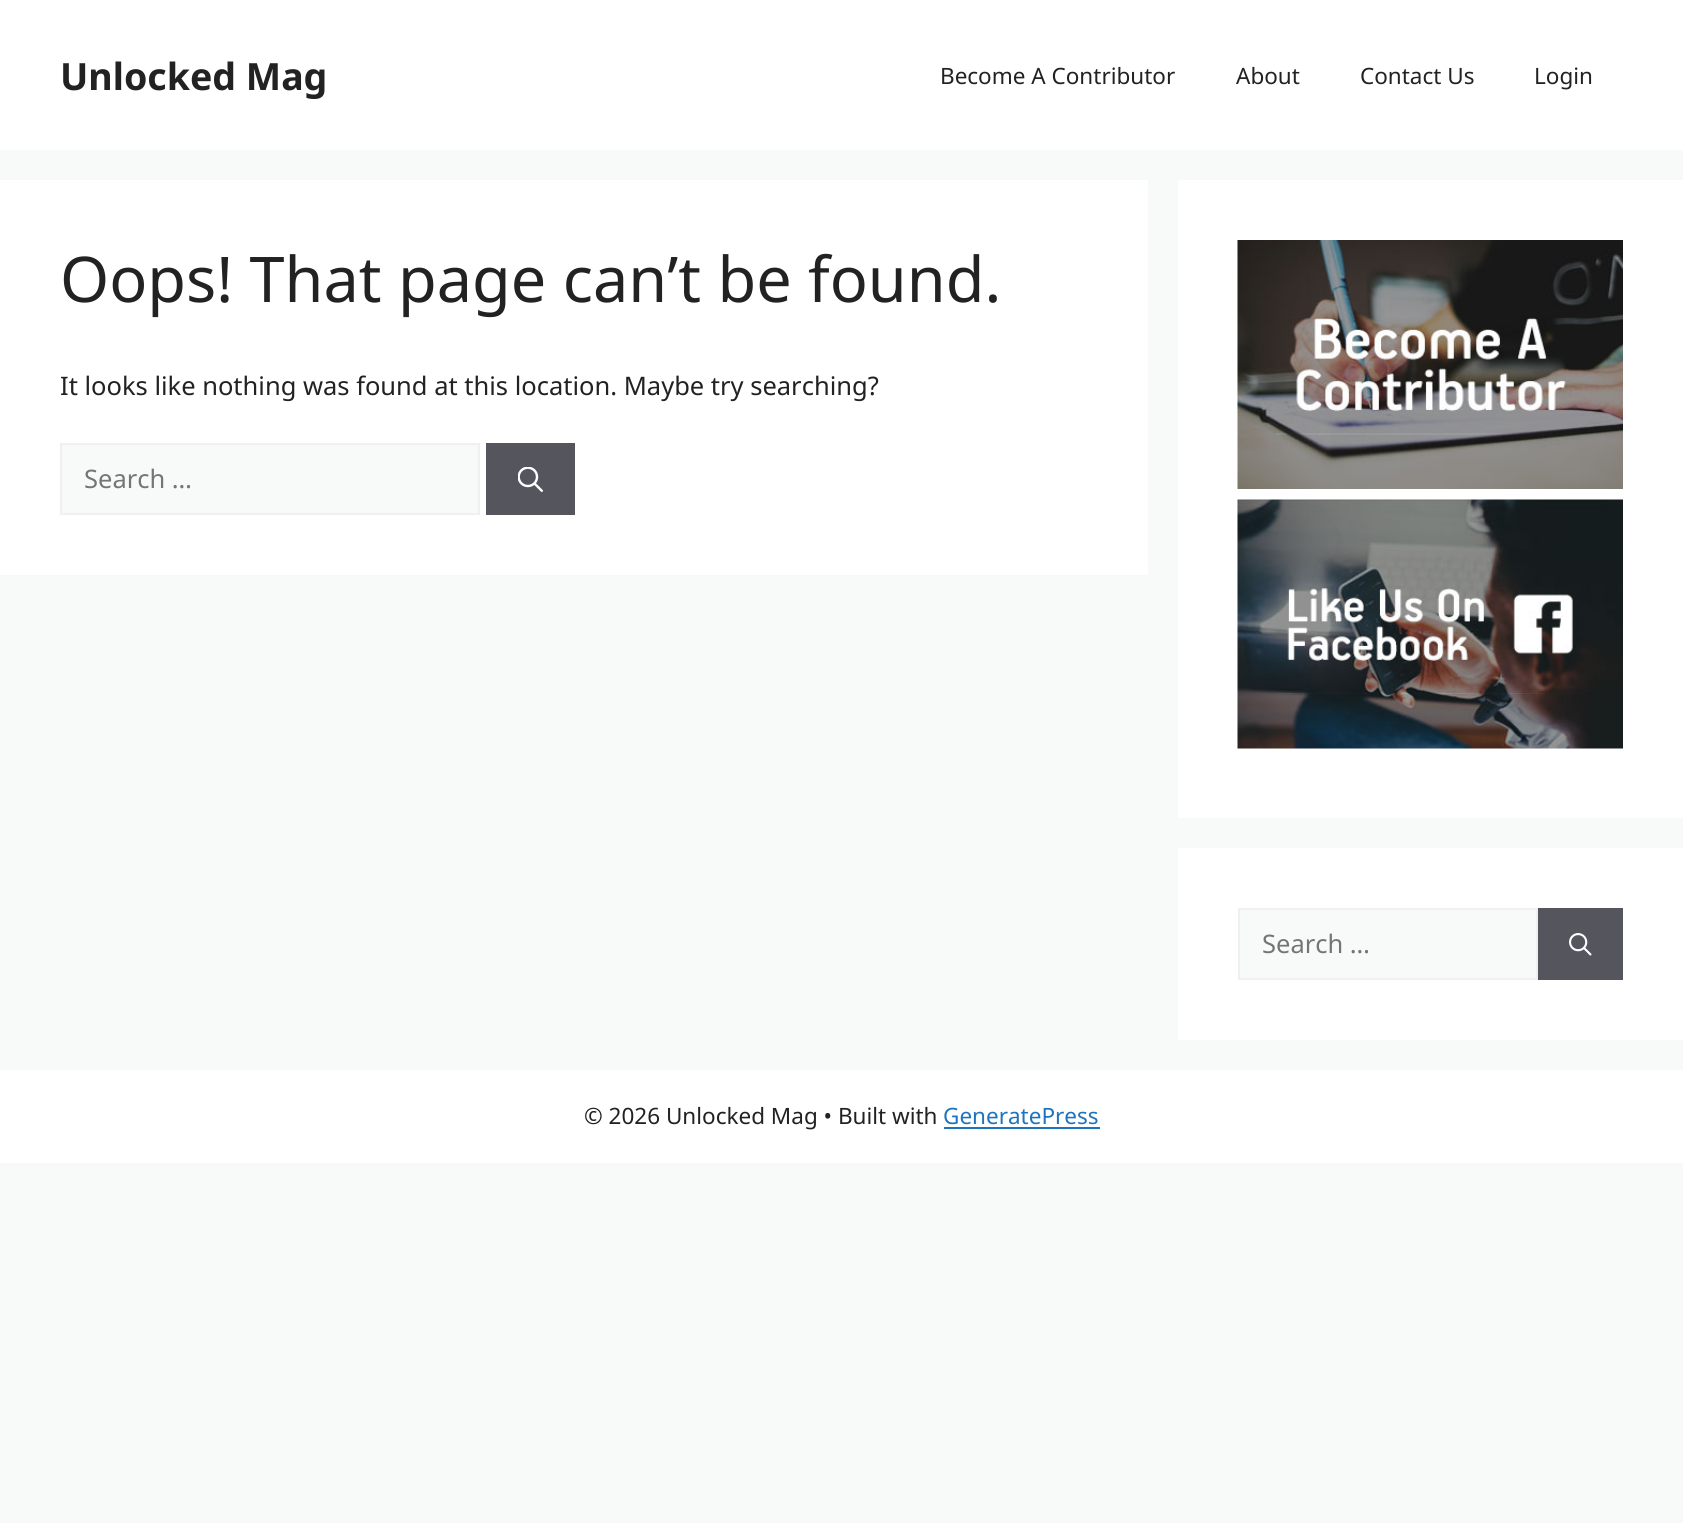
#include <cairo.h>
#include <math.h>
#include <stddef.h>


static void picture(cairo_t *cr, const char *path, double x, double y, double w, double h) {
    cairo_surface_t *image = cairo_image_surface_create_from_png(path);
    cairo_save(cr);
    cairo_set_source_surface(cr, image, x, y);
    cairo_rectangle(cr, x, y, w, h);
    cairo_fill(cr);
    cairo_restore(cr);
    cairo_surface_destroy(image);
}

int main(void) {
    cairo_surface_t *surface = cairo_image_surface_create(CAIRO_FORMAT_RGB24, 1683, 1523);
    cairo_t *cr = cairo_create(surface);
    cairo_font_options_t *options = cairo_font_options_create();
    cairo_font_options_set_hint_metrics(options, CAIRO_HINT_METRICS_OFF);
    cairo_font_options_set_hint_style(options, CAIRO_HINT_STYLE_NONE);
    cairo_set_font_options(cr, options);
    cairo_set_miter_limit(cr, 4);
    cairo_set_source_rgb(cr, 0.969, 0.973, 0.976);
    cairo_paint(cr);
    cairo_set_source_rgb(cr, 1, 1, 1);
    cairo_rectangle(cr, 0, 0, 1683, 150);
    cairo_fill(cr);
    cairo_select_font_face(cr, "Noto Sans", CAIRO_FONT_SLANT_NORMAL, CAIRO_FONT_WEIGHT_BOLD);
    cairo_set_font_size(cr, 37.5);
    cairo_set_source_rgb(cr, 0.133, 0.133, 0.133);
    cairo_move_to(cr, 60, 90);
    cairo_show_text(cr, "Unlocked Mag");
    cairo_select_font_face(cr, "Noto Sans", CAIRO_FONT_SLANT_NORMAL, CAIRO_FONT_WEIGHT_NORMAL);
    cairo_set_font_size(cr, 22.5);
    cairo_move_to(cr, 940, 84);
    cairo_show_text(cr, "Become A Contributor");
    cairo_move_to(cr, 1236, 84);
    cairo_show_text(cr, "About");
    cairo_move_to(cr, 1360, 84);
    cairo_show_text(cr, "Contact Us");
    cairo_move_to(cr, 1534, 84);
    cairo_show_text(cr, "Login");
    cairo_set_source_rgb(cr, 1, 1, 1);
    cairo_rectangle(cr, 0, 180, 1148, 395);
    cairo_fill(cr);
    cairo_set_font_size(cr, 63);
    cairo_set_source_rgb(cr, 0.133, 0.133, 0.133);
    cairo_move_to(cr, 60, 302);
    cairo_show_text(cr, "Oops! That page can’t be found.");
    cairo_set_font_size(cr, 25.5);
    cairo_move_to(cr, 60, 395);
    cairo_show_text(cr, "It looks like nothing was found at this location. Maybe try searching?");
    cairo_set_source_rgb(cr, 0.969, 0.973, 0.976);
    cairo_rectangle(cr, 61, 444, 418, 70);
    cairo_fill_preserve(cr);
    cairo_set_source_rgb(cr, 0.941, 0.941, 0.941);
    cairo_stroke(cr);
    cairo_set_source_rgb(cr, 0.459, 0.459, 0.459);
    cairo_move_to(cr, 84, 488);
    cairo_show_text(cr, "Search …");
    cairo_set_source_rgb(cr, 0.333, 0.333, 0.369);
    cairo_rectangle(cr, 486, 443, 89, 72);
    cairo_fill(cr);
    picture(cr, "img1.png", 518, 467, 25, 25);
    cairo_set_source_rgb(cr, 1, 1, 1);
    cairo_rectangle(cr, 1178, 180, 505, 638);
    cairo_fill(cr);
    picture(cr, "img2.png", 1237, 240, 386, 249);
    picture(cr, "img3.png", 1237, 499, 386, 250);
    cairo_rectangle(cr, 1178, 848, 505, 192);
    cairo_fill(cr);
    cairo_set_source_rgb(cr, 0.969, 0.973, 0.976);
    cairo_rectangle(cr, 1239, 909, 298, 70);
    cairo_fill_preserve(cr);
    cairo_set_source_rgb(cr, 0.941, 0.941, 0.941);
    cairo_stroke(cr);
    cairo_set_source_rgb(cr, 0.459, 0.459, 0.459);
    cairo_move_to(cr, 1262, 953);
    cairo_show_text(cr, "Search …");
    cairo_set_source_rgb(cr, 0.333, 0.333, 0.369);
    cairo_rectangle(cr, 1538, 908, 85, 72);
    cairo_fill(cr);
    picture(cr, "img4.png", 1569, 933, 23, 23);
    cairo_set_source_rgb(cr, 1, 1, 1);
    cairo_rectangle(cr, 0, 1070, 1683, 93);
    cairo_fill(cr);
    cairo_set_font_size(cr, 22.5);
    cairo_set_source_rgb(cr, 0.133, 0.133, 0.133);
    cairo_move_to(cr, 584, 1124);
    cairo_show_text(cr, "© 2026 Unlocked Mag • Built with");
    cairo_set_source_rgb(cr, 0.118, 0.451, 0.745);
    cairo_move_to(cr, 943, 1124);
    cairo_show_text(cr, "GeneratePress");
    cairo_rectangle(cr, 944, 1127, 156, 2);
    cairo_fill(cr);
    cairo_surface_write_to_png(surface, "page.png");
    cairo_font_options_destroy(options);
    cairo_destroy(cr);
    cairo_surface_destroy(surface);
    return 0;
}
